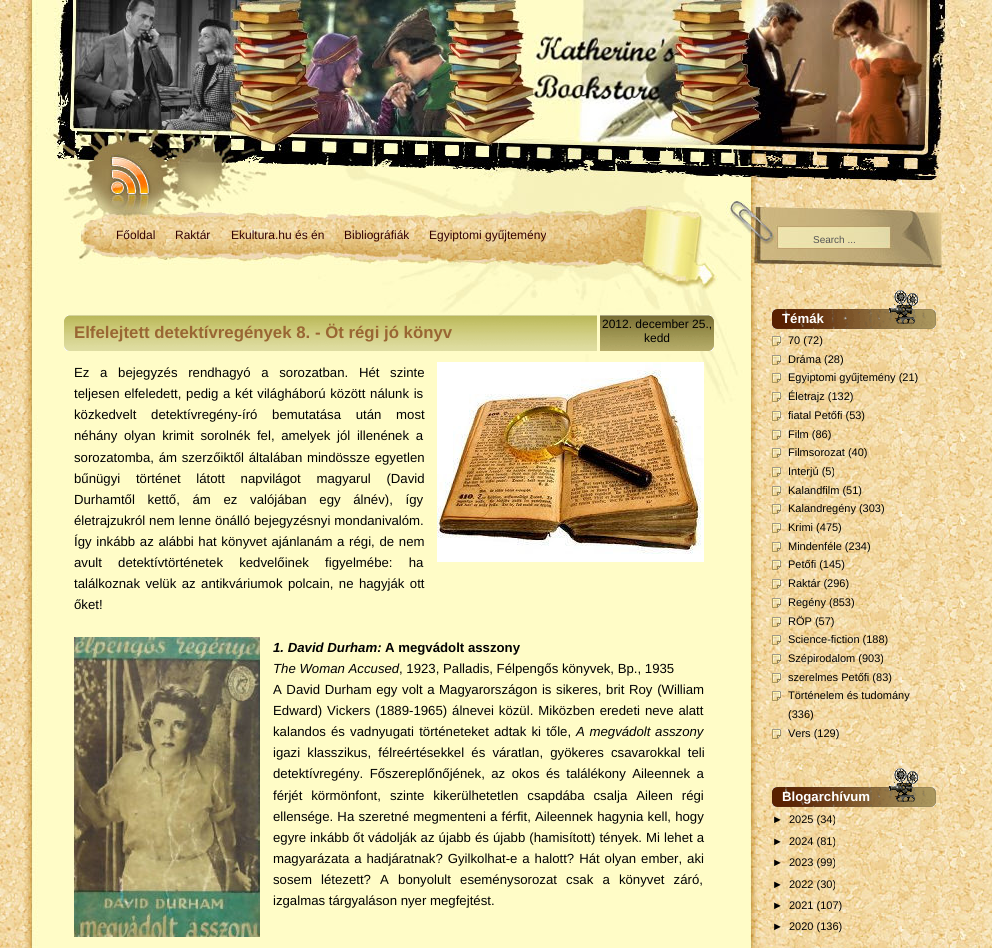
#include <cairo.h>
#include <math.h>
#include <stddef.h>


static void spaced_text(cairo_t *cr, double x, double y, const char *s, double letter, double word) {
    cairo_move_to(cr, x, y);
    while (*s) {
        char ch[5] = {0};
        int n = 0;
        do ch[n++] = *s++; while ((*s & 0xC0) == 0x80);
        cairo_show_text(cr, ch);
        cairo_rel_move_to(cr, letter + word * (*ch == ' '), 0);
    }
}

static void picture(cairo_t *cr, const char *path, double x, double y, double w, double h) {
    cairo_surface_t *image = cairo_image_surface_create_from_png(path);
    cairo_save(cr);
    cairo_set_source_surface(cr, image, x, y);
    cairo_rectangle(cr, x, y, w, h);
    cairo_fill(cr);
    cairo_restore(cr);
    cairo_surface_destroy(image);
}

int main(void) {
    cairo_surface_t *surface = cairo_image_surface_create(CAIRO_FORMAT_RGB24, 992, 948);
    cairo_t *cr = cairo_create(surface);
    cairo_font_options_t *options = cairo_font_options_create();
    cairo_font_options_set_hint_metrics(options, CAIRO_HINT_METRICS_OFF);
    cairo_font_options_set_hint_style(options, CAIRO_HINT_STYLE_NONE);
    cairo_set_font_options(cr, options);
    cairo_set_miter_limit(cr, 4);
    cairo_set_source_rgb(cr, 1, 1, 1);
    cairo_paint(cr);
    picture(cr, "img1.png", 0, 0, 992, 948);
    picture(cr, "img2.png", 6, 290, 980, 658);
    picture(cr, "img3.png", 6, 0, 980, 145);
    picture(cr, "img4.png", 6, 145, 980, 145);
    cairo_select_font_face(cr, "Liberation Sans", CAIRO_FONT_SLANT_NORMAL, CAIRO_FONT_WEIGHT_NORMAL);
    cairo_set_font_size(cr, 12);
    cairo_set_source_rgb(cr, 0.2, 0, 0);
    cairo_move_to(cr, 116, 239);
    cairo_show_text(cr, "Főoldal");
    cairo_move_to(cr, 175, 239);
    cairo_show_text(cr, "Raktár");
    cairo_move_to(cr, 231, 239);
    cairo_show_text(cr, "Ekultura.hu és én");
    cairo_move_to(cr, 344, 239);
    cairo_show_text(cr, "Bibliográfiák");
    cairo_move_to(cr, 429, 239);
    cairo_show_text(cr, "Egyiptomi gyűjtemény");
    cairo_set_font_size(cr, 10);
    cairo_set_source_rgb(cr, 0.333, 0.333, 0.333);
    cairo_move_to(cr, 813, 243);
    cairo_show_text(cr, "Search ...");
    picture(cr, "img5.png", 32, 290, 719, 125);
    picture(cr, "img6.png", 64, 315, 650, 36);
    cairo_select_font_face(cr, "Liberation Sans", CAIRO_FONT_SLANT_NORMAL, CAIRO_FONT_WEIGHT_BOLD);
    cairo_set_font_size(cr, 16.8);
    cairo_set_source_rgb(cr, 0.6, 0.4, 0.2);
    cairo_move_to(cr, 74, 338);
    cairo_show_text(cr, "Elfelejtett detektívregények 8. - Öt régi jó könyv");
    cairo_select_font_face(cr, "Liberation Sans", CAIRO_FONT_SLANT_NORMAL, CAIRO_FONT_WEIGHT_NORMAL);
    cairo_set_font_size(cr, 12);
    cairo_set_source_rgb(cr, 0, 0, 0);
    cairo_move_to(cr, 602, 328);
    cairo_show_text(cr, "2012. december 25.,");
    cairo_move_to(cr, 644, 342);
    cairo_show_text(cr, "kedd");
    cairo_set_font_size(cr, 13.2);
    spaced_text(cr, 74, 377, "Ez a bejegyzés rendhagyó a sorozatban. Hét szinte", 0, 7);
    picture(cr, "img7.png", 437, 362, 267, 200);
    spaced_text(cr, 74, 398, "teljesen elfeledett, pedig a két világháború között nálunk is", 0, 1);
    spaced_text(cr, 74, 419, "közkedvelt detektívregény-író bemutatása után most", 0, 11);
    spaced_text(cr, 74, 440, "néhány olyan krimit sorolnék fel, amelyek jól illenének a", 0, 3);
    spaced_text(cr, 74, 462, "sorozatomba, ám szerzőiktől általában mindössze egyetlen", 0, 1);
    spaced_text(cr, 74, 483, "bűnügyi történet látott napvilágot magyarul (David", 0, 12);
    spaced_text(cr, 74, 504, "Durhamtől kettő, ám ez valójában egy álnév), így", 0, 9);
    spaced_text(cr, 74, 525, "életrajzukról nem lenne önálló bejegyzésnyi mondanivalóm.", 0, 0.25);
    spaced_text(cr, 74, 546, "Így inkább az alábbi hat könyvet ajánlanám a régi, de nem", 0, 1);
    spaced_text(cr, 74, 567, "avult detektívtörténetek kedvelőinek figyelmébe: ha", 0, 12.5);
    spaced_text(cr, 74, 588, "találkoznak velük az antikváriumok polcain, ne hagyják ott", 0, 1.75);
    cairo_move_to(cr, 74, 609);
    cairo_show_text(cr, "őket!");
    picture(cr, "img8.png", 74, 637, 186, 300);
    cairo_select_font_face(cr, "Liberation Sans", CAIRO_FONT_SLANT_ITALIC, CAIRO_FONT_WEIGHT_BOLD);
    cairo_move_to(cr, 273, 652);
    cairo_show_text(cr, "1. David Durham:");
    cairo_select_font_face(cr, "Liberation Sans", CAIRO_FONT_SLANT_NORMAL, CAIRO_FONT_WEIGHT_BOLD);
    cairo_move_to(cr, 385, 652);
    cairo_show_text(cr, "A megvádolt asszony");
    cairo_select_font_face(cr, "Liberation Sans", CAIRO_FONT_SLANT_ITALIC, CAIRO_FONT_WEIGHT_NORMAL);
    cairo_move_to(cr, 273, 673);
    cairo_show_text(cr, "The Woman Accused");
    cairo_select_font_face(cr, "Liberation Sans", CAIRO_FONT_SLANT_NORMAL, CAIRO_FONT_WEIGHT_NORMAL);
    cairo_move_to(cr, 399, 673);
    cairo_show_text(cr, ", 1923, Palladis, Félpengős könyvek, Bp., 1935");
    spaced_text(cr, 273, 694, "A David Durham egy volt a Magyarországon is sikeres, brit", 0, 0.9);
    spaced_text(cr, 629, 694, "Roy (William", 0, 1);
    spaced_text(cr, 273, 715, "Edward) Vickers (1889-1965) álnevei közül. Miközben eredeti neve alatt", 0, 1.25);
    spaced_text(cr, 273, 736, "kalandos és vadnyugati történeteket adtak ki tőle,", 0, 1.5);
    cairo_select_font_face(cr, "Liberation Sans", CAIRO_FONT_SLANT_ITALIC, CAIRO_FONT_WEIGHT_NORMAL);
    spaced_text(cr, 576, 736, "A megvádolt asszony", 0, 1);
    cairo_select_font_face(cr, "Liberation Sans", CAIRO_FONT_SLANT_NORMAL, CAIRO_FONT_WEIGHT_NORMAL);
    spaced_text(cr, 273, 757, "igazi klasszikus, félreértésekkel és váratlan, gyökeres csavarokkal teli", 0, 3.5);
    spaced_text(cr, 273, 778, "detektívregény. Főszereplőnőjének, az okos és találékony Aileennek a", 0, 2.75);
    spaced_text(cr, 273, 800, "férjét körmönfont, szinte kikerülhetetlen csapdába csalja Aileen régi", 0, 5.25);
    spaced_text(cr, 273, 821, "ellensége. Ha szeretné megmenteni a férfit, Aileennek hagynia kell, hogy", 0, 0.5);
    spaced_text(cr, 273, 842, "egyre inkább őt vádolják az újabb és újabb (hamisított) tények. Mi lehet a", 0, 0.4);
    spaced_text(cr, 273, 863, "magyarázata a hadjáratnak? Gyilkolhat-e a halott? Hát olyan ember, aki", 0, 1.25);
    spaced_text(cr, 273, 884, "sosem létezett? A bonyolult eseménysorozat csak a könyvet záró,", 0, 5.5);
    cairo_move_to(cr, 273, 905);
    cairo_show_text(cr, "izgalmas tárgyaláson nyer megfejtést.");
    picture(cr, "img9.png", 772, 290, 164, 39);
    cairo_select_font_face(cr, "Liberation Sans", CAIRO_FONT_SLANT_NORMAL, CAIRO_FONT_WEIGHT_BOLD);
    cairo_set_source_rgb(cr, 1, 1, 1);
    cairo_move_to(cr, 782, 323);
    cairo_show_text(cr, "Témák");
    picture(cr, "img10.png", 772, 336, 9, 10);
    cairo_select_font_face(cr, "Liberation Sans", CAIRO_FONT_SLANT_NORMAL, CAIRO_FONT_WEIGHT_NORMAL);
    cairo_set_font_size(cr, 11);
    cairo_set_source_rgb(cr, 0, 0, 0);
    cairo_move_to(cr, 788, 344);
    cairo_show_text(cr, "70 (72)");
    picture(cr, "img11.png", 772, 355, 9, 10);
    cairo_move_to(cr, 788, 363);
    cairo_show_text(cr, "Dráma (28)");
    picture(cr, "img12.png", 772, 373, 9, 10);
    cairo_move_to(cr, 788, 381);
    cairo_show_text(cr, "Egyiptomi gyűjtemény (21)");
    picture(cr, "img13.png", 772, 392, 9, 10);
    cairo_move_to(cr, 788, 400);
    cairo_show_text(cr, "Életrajz (132)");
    picture(cr, "img14.png", 772, 411, 9, 10);
    cairo_move_to(cr, 788, 419);
    cairo_show_text(cr, "fiatal Petőfi (53)");
    picture(cr, "img15.png", 772, 430, 9, 10);
    cairo_move_to(cr, 788, 438);
    cairo_show_text(cr, "Film (86)");
    picture(cr, "img16.png", 772, 448, 9, 10);
    cairo_move_to(cr, 788, 456);
    cairo_show_text(cr, "Filmsorozat (40)");
    picture(cr, "img17.png", 772, 467, 9, 10);
    cairo_move_to(cr, 788, 475);
    cairo_show_text(cr, "Interjú (5)");
    picture(cr, "img18.png", 772, 486, 9, 10);
    cairo_move_to(cr, 788, 494);
    cairo_show_text(cr, "Kalandfilm (51)");
    picture(cr, "img19.png", 772, 504, 9, 10);
    cairo_move_to(cr, 788, 512);
    cairo_show_text(cr, "Kalandregény (303)");
    picture(cr, "img20.png", 772, 523, 9, 10);
    cairo_move_to(cr, 788, 531);
    cairo_show_text(cr, "Krimi (475)");
    picture(cr, "img21.png", 772, 542, 9, 10);
    cairo_move_to(cr, 788, 550);
    cairo_show_text(cr, "Mindenféle (234)");
    picture(cr, "img22.png", 772, 560, 9, 10);
    cairo_move_to(cr, 788, 568);
    cairo_show_text(cr, "Petőfi (145)");
    picture(cr, "img23.png", 772, 579, 9, 10);
    cairo_move_to(cr, 788, 587);
    cairo_show_text(cr, "Raktár (296)");
    picture(cr, "img24.png", 772, 598, 9, 10);
    cairo_move_to(cr, 788, 606);
    cairo_show_text(cr, "Regény (853)");
    picture(cr, "img25.png", 772, 617, 9, 10);
    cairo_move_to(cr, 788, 625);
    cairo_show_text(cr, "RÖP (57)");
    picture(cr, "img26.png", 772, 635, 9, 10);
    cairo_move_to(cr, 788, 643);
    cairo_show_text(cr, "Science-fiction (188)");
    picture(cr, "img27.png", 772, 654, 9, 10);
    cairo_move_to(cr, 788, 662);
    cairo_show_text(cr, "Szépirodalom (903)");
    picture(cr, "img28.png", 772, 673, 9, 10);
    cairo_move_to(cr, 788, 681);
    cairo_show_text(cr, "szerelmes Petőfi (83)");
    picture(cr, "img29.png", 772, 691, 9, 10);
    cairo_move_to(cr, 788, 699);
    cairo_show_text(cr, "Történelem és tudomány");
    cairo_move_to(cr, 788, 718);
    cairo_show_text(cr, "(336)");
    picture(cr, "img30.png", 772, 729, 9, 10);
    cairo_move_to(cr, 788, 737);
    cairo_show_text(cr, "Vers (129)");
    picture(cr, "img31.png", 772, 768, 164, 39);
    cairo_select_font_face(cr, "Liberation Sans", CAIRO_FONT_SLANT_NORMAL, CAIRO_FONT_WEIGHT_BOLD);
    cairo_set_font_size(cr, 13.2);
    cairo_set_source_rgb(cr, 1, 1, 1);
    cairo_move_to(cr, 782, 801);
    cairo_show_text(cr, "Blogarchívum");
    cairo_select_font_face(cr, "Liberation Sans", CAIRO_FONT_SLANT_NORMAL, CAIRO_FONT_WEIGHT_NORMAL);
    cairo_set_font_size(cr, 11);
    cairo_set_source_rgb(cr, 0, 0, 0);
    cairo_move_to(cr, 772, 823);
    cairo_show_text(cr, "►");
    cairo_move_to(cr, 789, 823);
    cairo_show_text(cr, "2025 (34)");
    cairo_move_to(cr, 772, 845);
    cairo_show_text(cr, "►");
    cairo_move_to(cr, 789, 845);
    cairo_show_text(cr, "2024 (81)");
    cairo_move_to(cr, 772, 866);
    cairo_show_text(cr, "►");
    cairo_move_to(cr, 789, 866);
    cairo_show_text(cr, "2023 (99)");
    cairo_move_to(cr, 772, 888);
    cairo_show_text(cr, "►");
    cairo_move_to(cr, 789, 888);
    cairo_show_text(cr, "2022 (30)");
    cairo_move_to(cr, 772, 909);
    cairo_show_text(cr, "►");
    cairo_move_to(cr, 789, 909);
    cairo_show_text(cr, "2021 (107)");
    cairo_move_to(cr, 772, 930);
    cairo_show_text(cr, "►");
    cairo_move_to(cr, 789, 930);
    cairo_show_text(cr, "2020 (136)");
    cairo_surface_write_to_png(surface, "page.png");
    cairo_font_options_destroy(options);
    cairo_destroy(cr);
    cairo_surface_destroy(surface);
    return 0;
}
